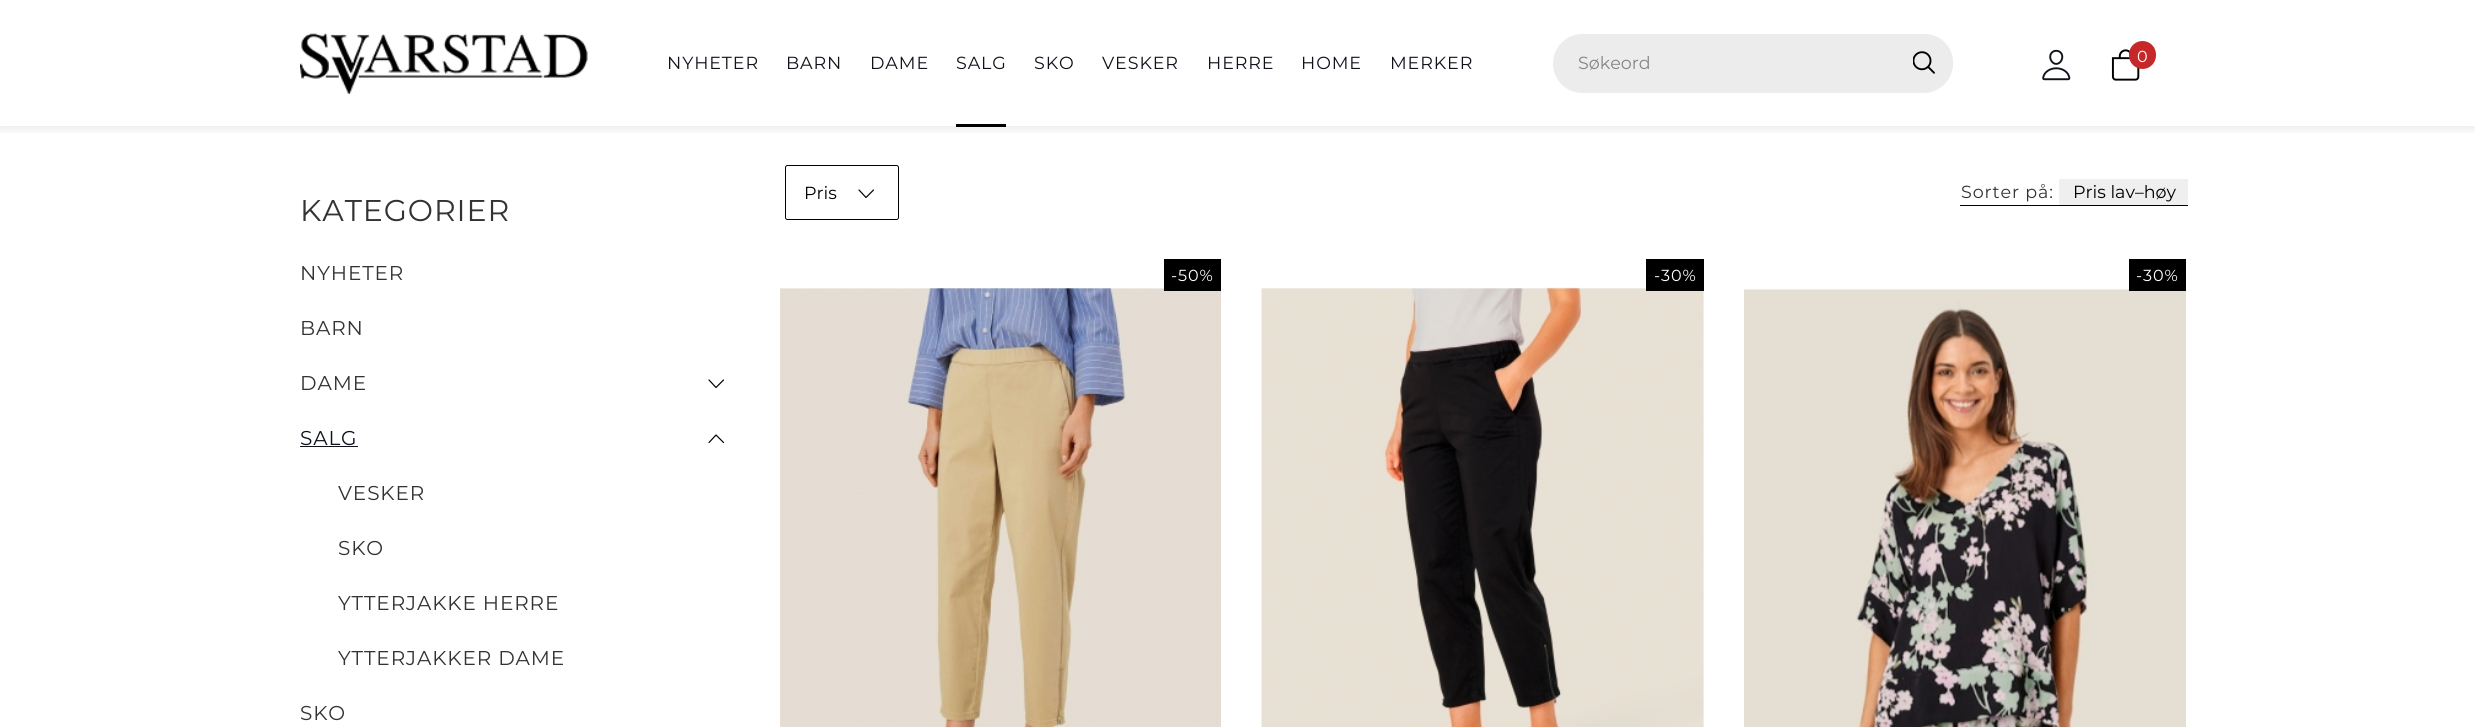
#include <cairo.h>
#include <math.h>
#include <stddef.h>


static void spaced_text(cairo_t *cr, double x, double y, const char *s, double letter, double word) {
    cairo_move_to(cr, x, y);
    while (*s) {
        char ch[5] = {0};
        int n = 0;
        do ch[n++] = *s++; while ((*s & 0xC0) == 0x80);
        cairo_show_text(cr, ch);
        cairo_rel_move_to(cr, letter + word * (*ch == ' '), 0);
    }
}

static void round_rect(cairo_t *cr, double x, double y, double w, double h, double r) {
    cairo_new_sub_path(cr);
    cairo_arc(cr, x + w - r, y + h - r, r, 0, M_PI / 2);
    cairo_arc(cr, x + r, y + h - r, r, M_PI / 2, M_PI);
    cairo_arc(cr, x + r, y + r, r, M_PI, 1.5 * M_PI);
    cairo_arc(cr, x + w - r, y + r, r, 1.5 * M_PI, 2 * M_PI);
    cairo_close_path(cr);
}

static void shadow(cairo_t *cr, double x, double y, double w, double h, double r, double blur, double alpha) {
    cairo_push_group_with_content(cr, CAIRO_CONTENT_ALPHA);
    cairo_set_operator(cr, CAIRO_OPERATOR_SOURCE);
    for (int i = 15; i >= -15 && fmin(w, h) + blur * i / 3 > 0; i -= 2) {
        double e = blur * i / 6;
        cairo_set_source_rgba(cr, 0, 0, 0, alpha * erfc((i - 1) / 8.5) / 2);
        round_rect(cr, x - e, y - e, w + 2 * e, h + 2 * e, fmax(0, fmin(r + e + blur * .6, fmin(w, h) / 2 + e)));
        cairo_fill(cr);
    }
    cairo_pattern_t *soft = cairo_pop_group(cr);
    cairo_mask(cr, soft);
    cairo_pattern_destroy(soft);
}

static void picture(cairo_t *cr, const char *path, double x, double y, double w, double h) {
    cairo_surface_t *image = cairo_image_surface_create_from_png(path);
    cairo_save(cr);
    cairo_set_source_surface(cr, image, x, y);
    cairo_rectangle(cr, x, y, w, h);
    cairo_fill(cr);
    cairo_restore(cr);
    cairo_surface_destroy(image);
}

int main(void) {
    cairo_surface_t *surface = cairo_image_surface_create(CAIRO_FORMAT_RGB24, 2475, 727);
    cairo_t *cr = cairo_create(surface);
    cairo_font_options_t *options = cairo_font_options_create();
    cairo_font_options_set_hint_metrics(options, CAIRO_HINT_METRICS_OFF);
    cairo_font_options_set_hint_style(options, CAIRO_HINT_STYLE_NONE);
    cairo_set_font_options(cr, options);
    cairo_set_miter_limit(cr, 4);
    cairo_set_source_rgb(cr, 1, 1, 1);
    cairo_paint(cr);
    cairo_save(cr);
    cairo_rectangle(cr, 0, 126, 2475, 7);
    cairo_clip(cr);
    cairo_set_source_rgb(cr, 0, 0, 0);
    shadow(cr, 0, 1, 2475, 127, 0, 6, 0.1);
    cairo_restore(cr);
    picture(cr, "img1.png", 300, 33, 288, 61);
    cairo_select_font_face(cr, "Montserrat", CAIRO_FONT_SLANT_NORMAL, CAIRO_FONT_WEIGHT_NORMAL);
    cairo_set_font_size(cr, 17.5);
    cairo_set_source_rgb(cr, 0.059, 0.071, 0.102);
    spaced_text(cr, 667, 69, "NYHETER", 0.9, 0);
    spaced_text(cr, 786, 69, "BARN", 0.9, 0);
    spaced_text(cr, 870, 69, "DAME", 0.9, 0);
    spaced_text(cr, 956, 69, "SALG", 0.9, 0);
    cairo_set_source_rgb(cr, 0, 0, 0);
    cairo_rectangle(cr, 956, 124, 50, 3);
    cairo_fill(cr);
    cairo_set_source_rgb(cr, 0.059, 0.071, 0.102);
    spaced_text(cr, 1034, 69, "SKO", 0.9, 0);
    spaced_text(cr, 1102, 69, "VESKER", 0.9, 0);
    spaced_text(cr, 1207, 69, "HERRE", 0.9, 0);
    spaced_text(cr, 1301, 69, "HOME", 0.9, 0);
    spaced_text(cr, 1390, 69, "MERKER", 0.9, 0);
    cairo_set_source_rgb(cr, 0.922, 0.922, 0.922);
    round_rect(cr, 1553.5, 34.5, 399, 58, 29);
    cairo_fill_preserve(cr);
    cairo_set_line_width(cr, 1);
    cairo_stroke(cr);
    cairo_set_source_rgb(cr, 0.522, 0.522, 0.522);
    cairo_move_to(cr, 1578, 69);
    cairo_show_text(cr, "Søkeord");
    cairo_set_source_rgb(cr, 0.922, 0.922, 0.922);
    round_rect(cr, 1895, 34, 58, 57, 28.5);
    cairo_fill(cr);
    picture(cr, "img2.png", 1913, 51, 22, 23);
    picture(cr, "img3.png", 2042, 49, 29, 32);
    picture(cr, "img4.png", 2111, 49, 29, 32);
    cairo_set_source_rgb(cr, 0.776, 0.157, 0.161);
    round_rect(cr, 2129, 41, 27, 28, 13.5);
    cairo_fill(cr);
    cairo_set_font_size(cr, 16);
    cairo_set_source_rgb(cr, 1, 1, 1);
    spaced_text(cr, 2137, 62, "0", 0.9, 0);
    cairo_set_font_size(cr, 30);
    cairo_set_source_rgb(cr, 0.2, 0.2, 0.2);
    spaced_text(cr, 300, 221, "KATEGORIER", 0.9, 0);
    cairo_set_font_size(cr, 20);
    spaced_text(cr, 300, 280, "NYHETER", 0.9, 0);
    spaced_text(cr, 300, 335, "BARN", 0.9, 0);
    spaced_text(cr, 300, 390, "DAME", 0.9, 0);
    cairo_new_path(cr);
    cairo_move_to(cr, 709, 380);
    cairo_line_to(cr, 716, 387.5);
    cairo_line_to(cr, 723.5, 380);
    cairo_set_source_rgb(cr, 0, 0, 0);
    cairo_set_line_width(cr, 1.2);
    cairo_set_line_cap(cr, CAIRO_LINE_CAP_ROUND);
    cairo_set_line_join(cr, CAIRO_LINE_JOIN_ROUND);
    cairo_stroke(cr);
    cairo_set_source_rgb(cr, 0.059, 0.071, 0.102);
    spaced_text(cr, 300, 445, "SALG", 0.9, 0);
    cairo_rectangle(cr, 300, 446, 58, 1);
    cairo_fill(cr);
    cairo_new_path(cr);
    cairo_move_to(cr, 709, 442.5);
    cairo_line_to(cr, 716, 435);
    cairo_line_to(cr, 723.5, 442.5);
    cairo_set_source_rgb(cr, 0, 0, 0);
    cairo_stroke(cr);
    cairo_set_source_rgb(cr, 0.2, 0.2, 0.2);
    spaced_text(cr, 338, 500, "VESKER", 0.9, 0);
    spaced_text(cr, 338, 555, "SKO", 0.9, 0);
    spaced_text(cr, 338, 610, "YTTERJAKKE HERRE", 0.9, 0);
    spaced_text(cr, 338, 665, "YTTERJAKKER DAME", 0.9, 0);
    spaced_text(cr, 300, 720, "SKO", 0.9, 0);
    round_rect(cr, 785.5, 165.5, 113, 54, 2);
    cairo_set_source_rgb(cr, 0, 0, 0);
    cairo_set_line_width(cr, 1);
    cairo_set_line_cap(cr, CAIRO_LINE_CAP_BUTT);
    cairo_set_line_join(cr, CAIRO_LINE_JOIN_MITER);
    cairo_stroke(cr);
    cairo_set_font_size(cr, 17.5);
    cairo_move_to(cr, 804, 199);
    cairo_show_text(cr, "Pris");
    cairo_new_path(cr);
    cairo_move_to(cr, 859, 190);
    cairo_line_to(cr, 866, 197.5);
    cairo_line_to(cr, 873.5, 190);
    cairo_set_line_width(cr, 1.2);
    cairo_set_line_cap(cr, CAIRO_LINE_CAP_ROUND);
    cairo_set_line_join(cr, CAIRO_LINE_JOIN_ROUND);
    cairo_stroke(cr);
    cairo_rectangle(cr, 1960, 205, 228, 1);
    cairo_fill(cr);
    cairo_set_source_rgb(cr, 0.2, 0.2, 0.2);
    spaced_text(cr, 1961, 198, "Sorter på:", 0.9, 0);
    cairo_set_source_rgb(cr, 0.937, 0.937, 0.937);
    cairo_rectangle(cr, 2059, 179, 129, 26);
    cairo_fill(cr);
    cairo_set_source_rgb(cr, 0, 0, 0);
    cairo_move_to(cr, 2073, 198);
    cairo_show_text(cr, "Pris lav–høy");
    picture(cr, "img5.png", 780, 287, 441, 440);
    cairo_rectangle(cr, 1164, 259, 57, 32);
    cairo_fill(cr);
    cairo_set_font_size(cr, 16);
    cairo_set_source_rgb(cr, 1, 1, 1);
    spaced_text(cr, 1171, 281, "-50%", 0.9, 0);
    picture(cr, "img6.png", 1261, 287, 443, 440);
    cairo_set_source_rgb(cr, 0, 0, 0);
    cairo_rectangle(cr, 1646, 259, 58, 32);
    cairo_fill(cr);
    cairo_set_source_rgb(cr, 1, 1, 1);
    spaced_text(cr, 1654, 281, "-30%", 0.9, 0);
    picture(cr, "img7.png", 1744, 288, 442, 439);
    cairo_set_source_rgb(cr, 0, 0, 0);
    cairo_rectangle(cr, 2129, 259, 57, 32);
    cairo_fill(cr);
    cairo_set_source_rgb(cr, 1, 1, 1);
    spaced_text(cr, 2136, 281, "-30%", 0.9, 0);
    cairo_surface_write_to_png(surface, "page.png");
    cairo_font_options_destroy(options);
    cairo_destroy(cr);
    cairo_surface_destroy(surface);
    return 0;
}
